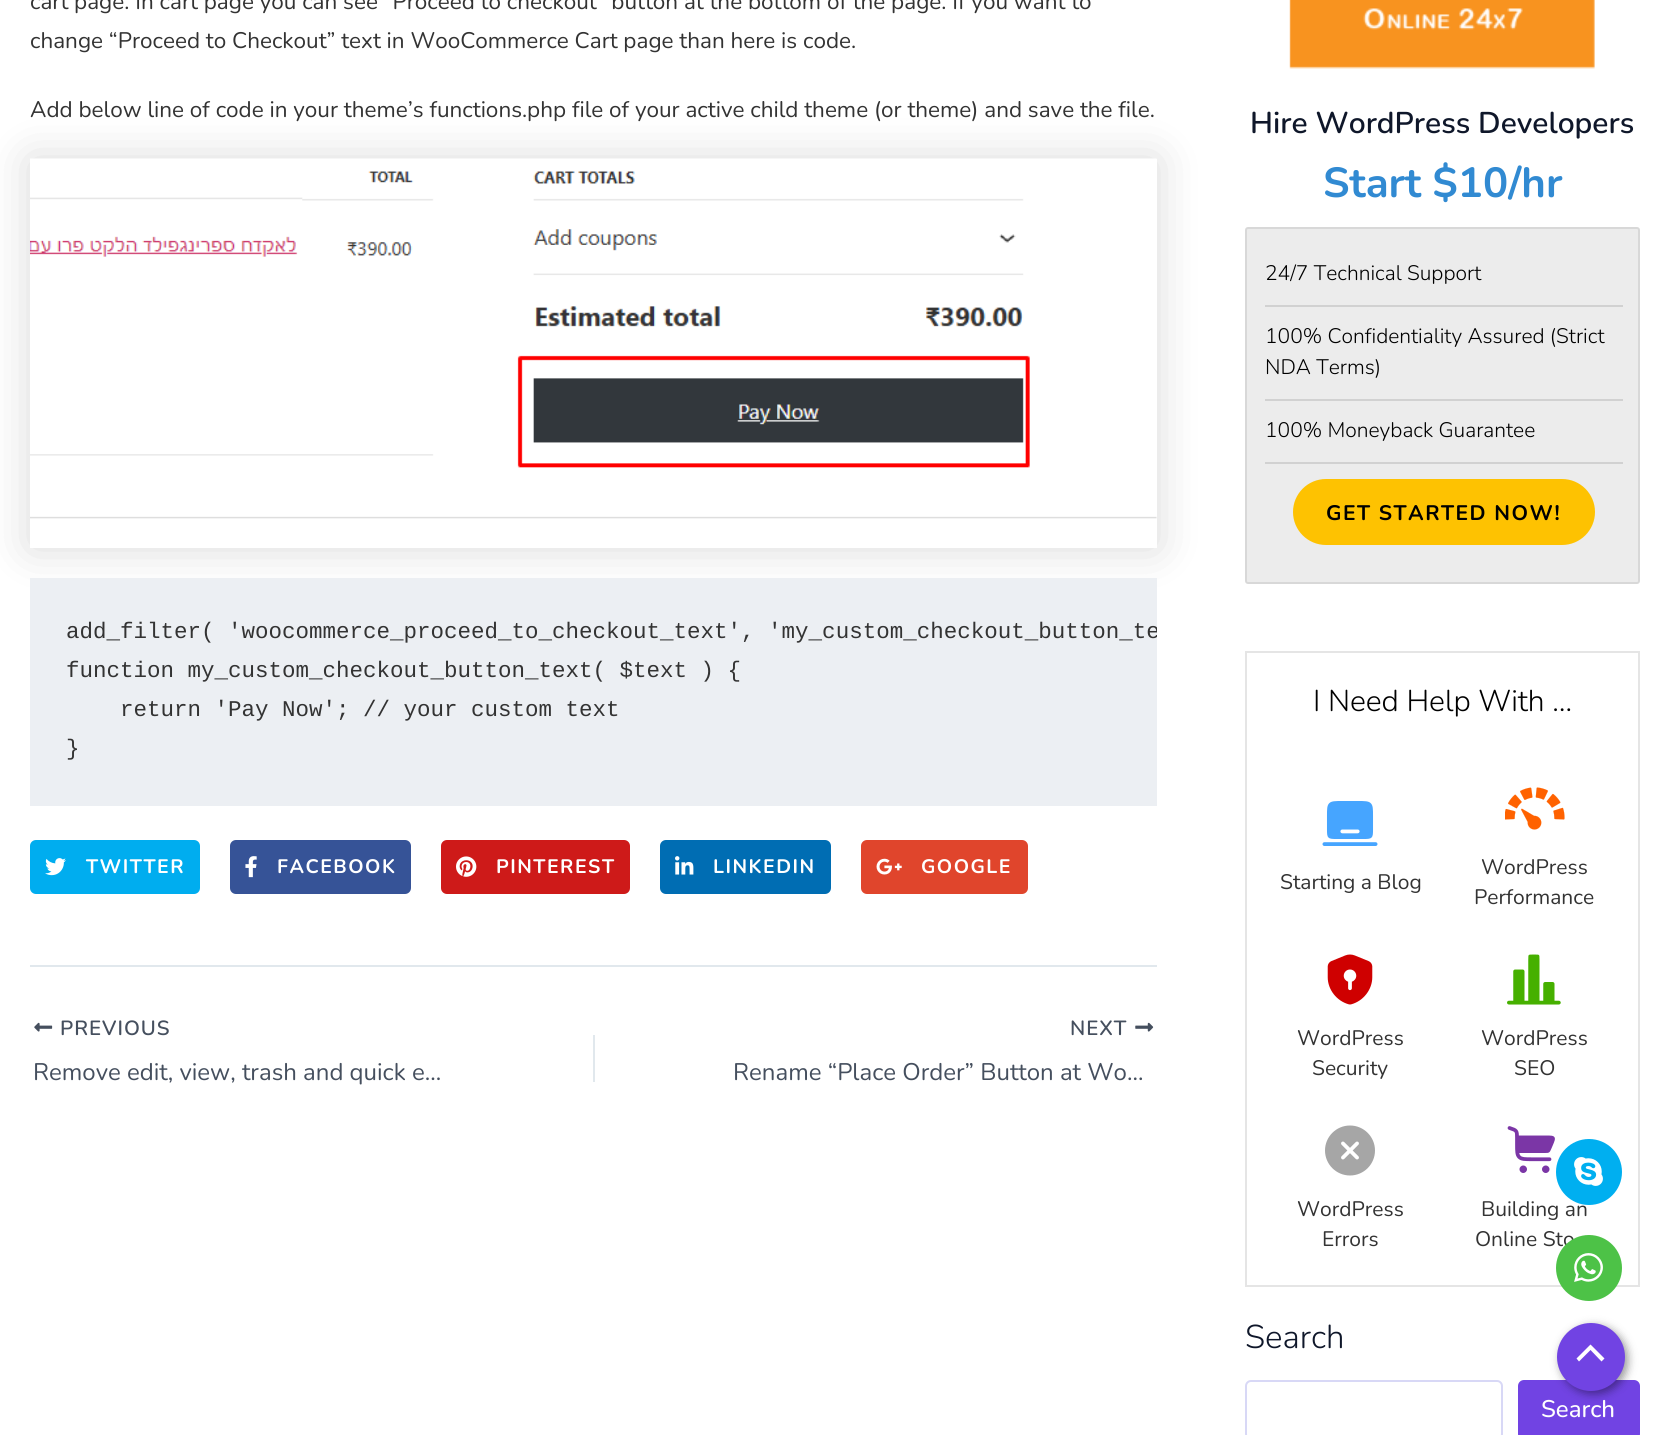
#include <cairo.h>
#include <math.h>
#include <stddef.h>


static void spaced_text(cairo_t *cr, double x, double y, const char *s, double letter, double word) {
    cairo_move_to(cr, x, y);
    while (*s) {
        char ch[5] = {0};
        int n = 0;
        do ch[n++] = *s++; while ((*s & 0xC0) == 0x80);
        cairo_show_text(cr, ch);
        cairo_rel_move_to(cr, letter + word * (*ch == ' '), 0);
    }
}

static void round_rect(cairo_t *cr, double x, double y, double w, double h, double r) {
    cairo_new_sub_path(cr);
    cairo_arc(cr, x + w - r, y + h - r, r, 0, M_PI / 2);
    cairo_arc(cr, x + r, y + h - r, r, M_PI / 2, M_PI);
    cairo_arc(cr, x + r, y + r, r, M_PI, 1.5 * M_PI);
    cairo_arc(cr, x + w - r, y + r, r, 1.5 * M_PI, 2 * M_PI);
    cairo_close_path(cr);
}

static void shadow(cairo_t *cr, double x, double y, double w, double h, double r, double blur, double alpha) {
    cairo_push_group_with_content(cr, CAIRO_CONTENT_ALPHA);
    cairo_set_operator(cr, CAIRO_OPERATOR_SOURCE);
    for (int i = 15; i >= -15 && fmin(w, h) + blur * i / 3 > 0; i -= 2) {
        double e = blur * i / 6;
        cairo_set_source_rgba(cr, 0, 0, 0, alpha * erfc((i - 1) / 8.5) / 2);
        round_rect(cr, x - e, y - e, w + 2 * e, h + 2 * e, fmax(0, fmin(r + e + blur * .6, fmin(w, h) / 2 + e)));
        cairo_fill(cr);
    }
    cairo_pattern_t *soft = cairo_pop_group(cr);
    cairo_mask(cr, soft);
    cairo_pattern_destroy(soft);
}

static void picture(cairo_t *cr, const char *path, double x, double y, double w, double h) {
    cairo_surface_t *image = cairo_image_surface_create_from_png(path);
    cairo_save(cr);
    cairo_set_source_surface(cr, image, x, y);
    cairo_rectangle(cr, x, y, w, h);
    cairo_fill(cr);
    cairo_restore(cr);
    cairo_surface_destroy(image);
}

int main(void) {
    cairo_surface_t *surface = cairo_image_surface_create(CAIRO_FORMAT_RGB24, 1669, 1435);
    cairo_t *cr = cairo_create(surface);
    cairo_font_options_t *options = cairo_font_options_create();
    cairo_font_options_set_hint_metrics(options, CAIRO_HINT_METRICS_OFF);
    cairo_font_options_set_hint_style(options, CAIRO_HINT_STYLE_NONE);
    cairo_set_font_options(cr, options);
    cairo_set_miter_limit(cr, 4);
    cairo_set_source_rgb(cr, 1, 1, 1);
    cairo_paint(cr);
    cairo_select_font_face(cr, "Nunito", CAIRO_FONT_SLANT_NORMAL, CAIRO_FONT_WEIGHT_NORMAL);
    cairo_set_font_size(cr, 22.5);
    cairo_set_source_rgb(cr, 0.2, 0.2, 0.2);
    cairo_move_to(cr, 30, 9);
    cairo_show_text(cr, "cart page. In cart page you can see “Proceed to checkout” button at the bottom of the page. If you want to");
    cairo_move_to(cr, 30, 48);
    cairo_show_text(cr, "change “Proceed to Checkout” text in WooCommerce Cart page than here is code.");
    cairo_save(cr);
    cairo_set_fill_rule(cr, CAIRO_FILL_RULE_EVEN_ODD);
    cairo_new_path(cr);
    cairo_move_to(cr, 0, 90);
    cairo_line_to(cr, 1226, 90);
    cairo_line_to(cr, 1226, 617);
    cairo_line_to(cr, 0, 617);
    cairo_close_path(cr);
    cairo_move_to(cr, 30, 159);
    cairo_line_to(cr, 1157, 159);
    cairo_line_to(cr, 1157, 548);
    cairo_line_to(cr, 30, 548);
    cairo_close_path(cr);
    cairo_clip(cr);
    cairo_set_source_rgb(cr, 0, 0, 0);
    shadow(cr, 30, 159, 1127, 389, 0, 22.5, 0.15);
    cairo_restore(cr);
    picture(cr, "img1.png", 30, 158, 1127, 370);
    cairo_move_to(cr, 30, 117);
    cairo_show_text(cr, "Add below line of code in your theme’s functions.php file of your active child theme (or theme) and save the file.");
    cairo_set_source_rgb(cr, 0.925, 0.937, 0.953);
    cairo_rectangle(cr, 30, 578, 1127, 228);
    cairo_fill(cr);
    cairo_save(cr);
    cairo_rectangle(cr, 30, 578, 1127, 228);
    cairo_clip(cr);
    cairo_select_font_face(cr, "Liberation Mono", CAIRO_FONT_SLANT_NORMAL, CAIRO_FONT_WEIGHT_NORMAL);
    cairo_set_source_rgb(cr, 0.2, 0.2, 0.2);
    cairo_move_to(cr, 66, 638);
    cairo_show_text(cr, "add_filter( 'woocommerce_proceed_to_checkout_text', 'my_custom_checkout_button_te");
    cairo_restore(cr);
    cairo_select_font_face(cr, "Liberation Mono", CAIRO_FONT_SLANT_NORMAL, CAIRO_FONT_WEIGHT_NORMAL);
    cairo_set_source_rgb(cr, 0.2, 0.2, 0.2);
    cairo_move_to(cr, 66, 677);
    cairo_show_text(cr, "function my_custom_checkout_button_text( $text ) {");
    cairo_move_to(cr, 120, 716);
    cairo_show_text(cr, "return 'Pay Now'; // your custom text");
    cairo_move_to(cr, 66, 755);
    cairo_show_text(cr, "}");
    cairo_set_source_rgb(cr, 0, 0.678, 0.937);
    round_rect(cr, 30, 840, 170, 54, 6);
    cairo_fill(cr);
    picture(cr, "img2.png", 45, 858, 21, 18);
    cairo_select_font_face(cr, "Nunito", CAIRO_FONT_SLANT_NORMAL, CAIRO_FONT_WEIGHT_BOLD);
    cairo_set_font_size(cr, 19.5);
    cairo_set_source_rgb(cr, 1, 1, 1);
    spaced_text(cr, 86, 873, "TWITTER", 1.5, 0);
    cairo_set_source_rgb(cr, 0.212, 0.325, 0.592);
    round_rect(cr, 230, 840, 181, 54, 6);
    cairo_fill(cr);
    picture(cr, "img3.png", 245, 856, 12, 22);
    cairo_set_source_rgb(cr, 1, 1, 1);
    spaced_text(cr, 277, 873, "FACEBOOK", 1.5, 0);
    cairo_set_source_rgb(cr, 0.808, 0.102, 0.098);
    round_rect(cr, 441, 840, 189, 54, 6);
    cairo_fill(cr);
    picture(cr, "img4.png", 456, 856, 21, 21);
    cairo_set_source_rgb(cr, 1, 1, 1);
    spaced_text(cr, 496, 873, "PINTEREST", 1.5, 0);
    cairo_set_source_rgb(cr, 0, 0.427, 0.702);
    round_rect(cr, 660, 840, 171, 54, 6);
    cairo_fill(cr);
    picture(cr, "img5.png", 675, 856, 19, 19);
    cairo_set_source_rgb(cr, 1, 1, 1);
    spaced_text(cr, 713, 873, "LINKEDIN", 1.5, 0);
    cairo_set_source_rgb(cr, 0.878, 0.271, 0.173);
    round_rect(cr, 861, 840, 167, 54, 6);
    cairo_fill(cr);
    picture(cr, "img6.png", 876, 858, 26, 17);
    cairo_set_source_rgb(cr, 1, 1, 1);
    spaced_text(cr, 921, 873, "GOOGLE", 1.5, 0);
    cairo_set_source_rgb(cr, 0.882, 0.91, 0.929);
    cairo_rectangle(cr, 30, 965, 1127, 2);
    cairo_fill(cr);
    picture(cr, "img7.png", 34, 1022, 19, 10);
    cairo_select_font_face(cr, "Nunito SemiBold", CAIRO_FONT_SLANT_NORMAL, CAIRO_FONT_WEIGHT_NORMAL);
    cairo_set_font_size(cr, 20.5);
    cairo_set_source_rgb(cr, 0.271, 0.31, 0.369);
    spaced_text(cr, 60, 1035, "PREVIOUS", 1, 0);
    cairo_select_font_face(cr, "Nunito", CAIRO_FONT_SLANT_NORMAL, CAIRO_FONT_WEIGHT_NORMAL);
    cairo_set_font_size(cr, 24);
    cairo_move_to(cr, 33, 1080);
    cairo_show_text(cr, "Remove edit, view, trash and quick e…");
    cairo_set_source_rgb(cr, 0.882, 0.91, 0.929);
    cairo_rectangle(cr, 593, 1035, 2, 47);
    cairo_fill(cr);
    cairo_select_font_face(cr, "Nunito SemiBold", CAIRO_FONT_SLANT_NORMAL, CAIRO_FONT_WEIGHT_NORMAL);
    cairo_set_font_size(cr, 20.5);
    cairo_set_source_rgb(cr, 0.271, 0.31, 0.369);
    spaced_text(cr, 1070, 1035, "NEXT", 1, 0);
    picture(cr, "img8.png", 1135, 1022, 19, 10);
    cairo_select_font_face(cr, "Nunito", CAIRO_FONT_SLANT_NORMAL, CAIRO_FONT_WEIGHT_NORMAL);
    cairo_set_font_size(cr, 24);
    cairo_move_to(cr, 733, 1080);
    cairo_show_text(cr, "Rename “Place Order” Button at Wo…");
    picture(cr, "img9.png", 1289, 0, 306, 69);
    cairo_select_font_face(cr, "Nunito SemiBold", CAIRO_FONT_SLANT_NORMAL, CAIRO_FONT_WEIGHT_NORMAL);
    cairo_set_font_size(cr, 30);
    cairo_set_source_rgb(cr, 0.059, 0.09, 0.165);
    cairo_move_to(cr, 1250, 133);
    cairo_show_text(cr, "Hire WordPress Developers");
    cairo_select_font_face(cr, "Nunito", CAIRO_FONT_SLANT_NORMAL, CAIRO_FONT_WEIGHT_BOLD);
    cairo_set_font_size(cr, 42);
    cairo_set_source_rgb(cr, 0.192, 0.541, 0.824);
    cairo_move_to(cr, 1323, 197);
    cairo_show_text(cr, "Start $10/hr");
    cairo_set_source_rgb(cr, 0.922, 0.922, 0.922);
    round_rect(cr, 1246, 228, 393, 355, 2);
    cairo_fill_preserve(cr);
    cairo_set_source_rgb(cr, 0.847, 0.847, 0.847);
    cairo_stroke(cr);
    cairo_set_source_rgb(cr, 0.82, 0.82, 0.82);
    cairo_rectangle(cr, 1265, 305, 358, 2);
    cairo_fill(cr);
    cairo_select_font_face(cr, "Nunito Light", CAIRO_FONT_SLANT_NORMAL, CAIRO_FONT_WEIGHT_NORMAL);
    cairo_set_font_size(cr, 21);
    cairo_set_source_rgb(cr, 0, 0, 0);
    cairo_move_to(cr, 1265, 280);
    cairo_show_text(cr, "24/7 Technical Support");
    cairo_set_source_rgb(cr, 0.82, 0.82, 0.82);
    cairo_rectangle(cr, 1265, 399, 358, 2);
    cairo_fill(cr);
    cairo_set_source_rgb(cr, 0, 0, 0);
    cairo_move_to(cr, 1265, 343);
    cairo_show_text(cr, "100% Confidentiality Assured (Strict");
    cairo_move_to(cr, 1265, 374);
    cairo_show_text(cr, "NDA Terms)");
    cairo_set_source_rgb(cr, 0.82, 0.82, 0.82);
    cairo_rectangle(cr, 1265, 462, 358, 2);
    cairo_fill(cr);
    cairo_set_source_rgb(cr, 0, 0, 0);
    cairo_move_to(cr, 1265, 437);
    cairo_show_text(cr, "100% Moneyback Guarantee");
    cairo_set_source_rgb(cr, 0.996, 0.761, 0.004);
    round_rect(cr, 1294.5, 480.5, 299, 63, 31.5);
    cairo_fill_preserve(cr);
    cairo_set_line_width(cr, 3);
    cairo_stroke(cr);
    cairo_select_font_face(cr, "Nunito", CAIRO_FONT_SLANT_NORMAL, CAIRO_FONT_WEIGHT_BOLD);
    cairo_set_source_rgb(cr, 0, 0, 0);
    spaced_text(cr, 1326, 520, "GET STARTED NOW!", 1.5, 0);
    cairo_rectangle(cr, 1246, 652, 393, 634);
    cairo_set_source_rgb(cr, 0.898, 0.898, 0.898);
    cairo_set_line_width(cr, 2);
    cairo_stroke(cr);
    cairo_select_font_face(cr, "Nunito Light", CAIRO_FONT_SLANT_NORMAL, CAIRO_FONT_WEIGHT_NORMAL);
    cairo_set_font_size(cr, 30);
    cairo_set_source_rgb(cr, 0, 0, 0);
    cairo_move_to(cr, 1313, 711);
    cairo_show_text(cr, "I Need Help With …");
    picture(cr, "img10.png", 1322, 801, 56, 45);
    cairo_select_font_face(cr, "Nunito", CAIRO_FONT_SLANT_NORMAL, CAIRO_FONT_WEIGHT_NORMAL);
    cairo_set_font_size(cr, 21);
    cairo_set_source_rgb(cr, 0.2, 0.2, 0.2);
    cairo_move_to(cr, 1280, 889);
    cairo_show_text(cr, "Starting a Blog");
    picture(cr, "img11.png", 1505, 787, 60, 43);
    cairo_move_to(cr, 1481, 874);
    cairo_show_text(cr, "WordPress");
    cairo_move_to(cr, 1474, 904);
    cairo_show_text(cr, "Performance");
    picture(cr, "img12.png", 1327, 954, 46, 51);
    cairo_move_to(cr, 1297, 1045);
    cairo_show_text(cr, "WordPress");
    cairo_move_to(cr, 1312, 1075);
    cairo_show_text(cr, "Security");
    picture(cr, "img13.png", 1507, 954, 54, 51);
    cairo_move_to(cr, 1481, 1045);
    cairo_show_text(cr, "WordPress");
    cairo_move_to(cr, 1514, 1075);
    cairo_show_text(cr, "SEO");
    picture(cr, "img14.png", 1325, 1125, 50, 51);
    cairo_move_to(cr, 1297, 1216);
    cairo_show_text(cr, "WordPress");
    cairo_move_to(cr, 1322, 1246);
    cairo_show_text(cr, "Errors");
    picture(cr, "img15.png", 1507, 1126, 48, 47);
    cairo_move_to(cr, 1481, 1216);
    cairo_show_text(cr, "Building an");
    cairo_move_to(cr, 1475, 1246);
    cairo_show_text(cr, "Online Sto");
    cairo_select_font_face(cr, "Nunito Light", CAIRO_FONT_SLANT_NORMAL, CAIRO_FONT_WEIGHT_NORMAL);
    cairo_set_font_size(cr, 33);
    cairo_set_source_rgb(cr, 0.059, 0.09, 0.165);
    cairo_move_to(cr, 1245, 1348);
    cairo_show_text(cr, "Search");
    round_rect(cr, 1246, 1381, 256, 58, 5);
    cairo_set_source_rgb(cr, 0.847, 0.847, 0.961);
    cairo_stroke(cr);
    cairo_set_source_rgb(cr, 0.443, 0.263, 0.89);
    round_rect(cr, 1518, 1380, 122, 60, 6);
    cairo_fill(cr);
    cairo_select_font_face(cr, "Nunito Medium", CAIRO_FONT_SLANT_NORMAL, CAIRO_FONT_WEIGHT_NORMAL);
    cairo_set_font_size(cr, 24);
    cairo_set_source_rgb(cr, 1, 1, 1);
    cairo_move_to(cr, 1541, 1417);
    cairo_show_text(cr, "Search");
    cairo_set_source_rgb(cr, 0, 0.686, 0.941);
    cairo_new_path(cr);
    cairo_arc(cr, 1589, 1172, 33, 0, 2 * M_PI);
    cairo_fill(cr);
    picture(cr, "img16.png", 1574, 1157, 29, 29);
    cairo_set_source_rgb(cr, 0.302, 0.761, 0.278);
    cairo_arc(cr, 1589, 1268, 33, 0, 2 * M_PI);
    cairo_fill(cr);
    picture(cr, "img17.png", 1574, 1253, 29, 29);
    cairo_set_source_rgb(cr, 0, 0, 0);
    shadow(cr, 1560, 1326, 68, 68, 34, 4.5, 0.4);
    cairo_set_source_rgb(cr, 0.443, 0.263, 0.89);
    cairo_arc(cr, 1591, 1357, 34, 0, 2 * M_PI);
    cairo_fill(cr);
    cairo_set_source_rgb(cr, 1, 1, 1);
    cairo_new_path(cr);
    cairo_move_to(cr, 1604.5, 1358.5);
    cairo_line_to(cr, 1590.5, 1344.5);
    cairo_line_to(cr, 1576.5, 1358.5);
    cairo_line_to(cr, 1579, 1361.5);
    cairo_line_to(cr, 1590.5, 1350);
    cairo_line_to(cr, 1601.5, 1361.5);
    cairo_close_path(cr);
    cairo_fill(cr);
    cairo_surface_write_to_png(surface, "page.png");
    cairo_font_options_destroy(options);
    cairo_destroy(cr);
    cairo_surface_destroy(surface);
    return 0;
}
